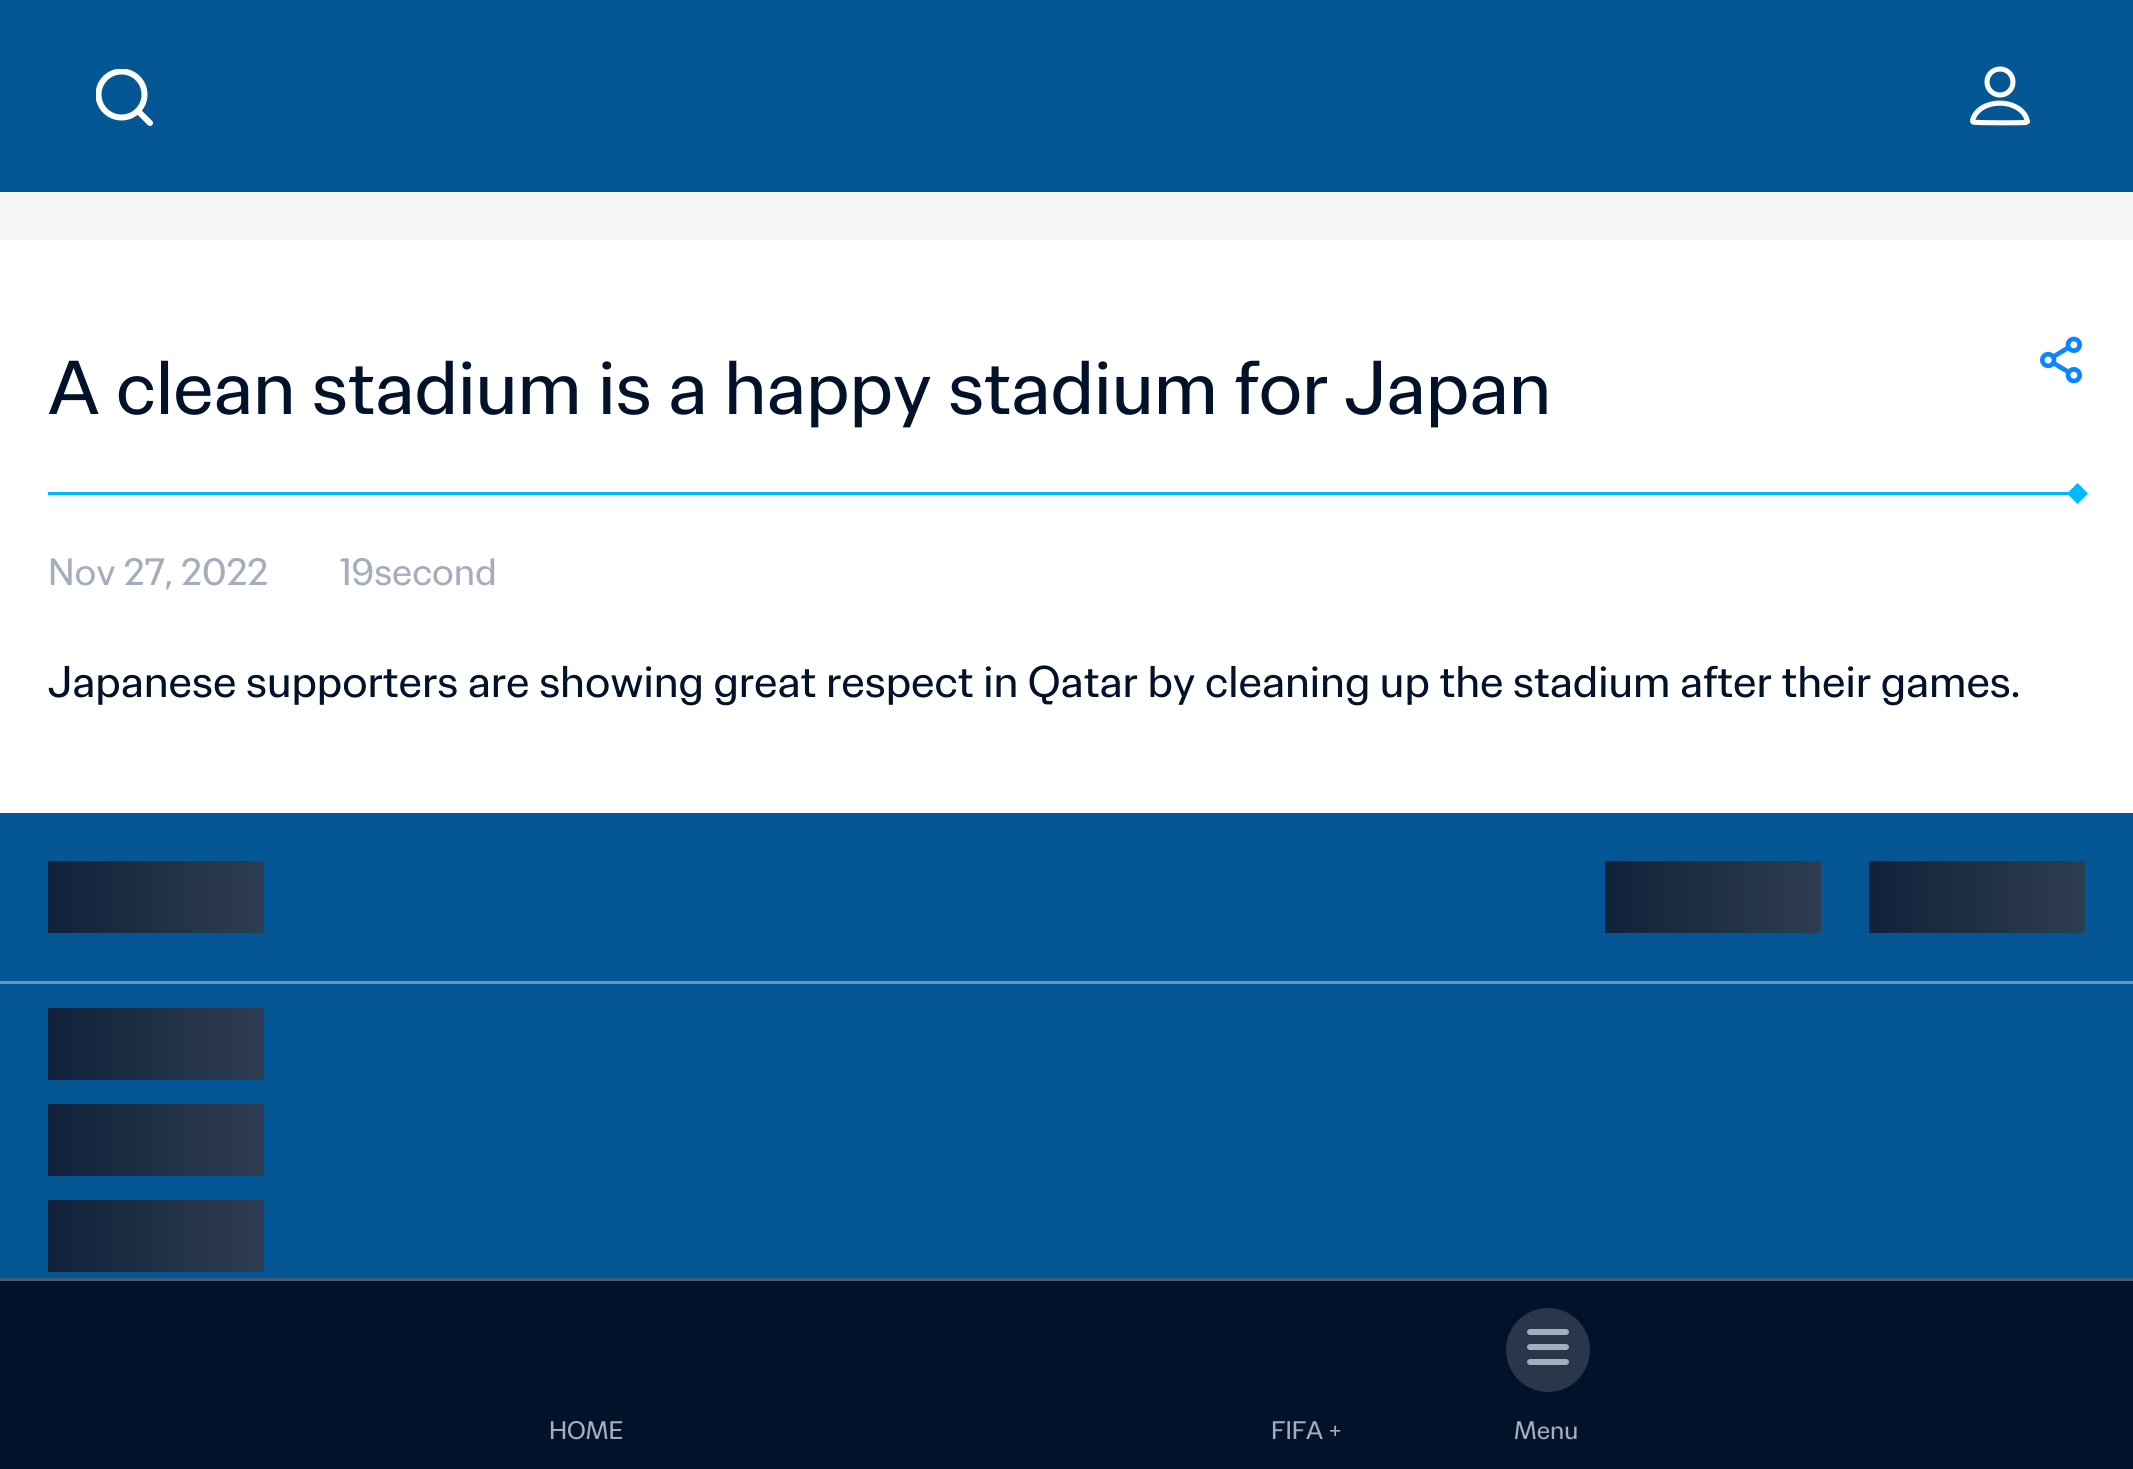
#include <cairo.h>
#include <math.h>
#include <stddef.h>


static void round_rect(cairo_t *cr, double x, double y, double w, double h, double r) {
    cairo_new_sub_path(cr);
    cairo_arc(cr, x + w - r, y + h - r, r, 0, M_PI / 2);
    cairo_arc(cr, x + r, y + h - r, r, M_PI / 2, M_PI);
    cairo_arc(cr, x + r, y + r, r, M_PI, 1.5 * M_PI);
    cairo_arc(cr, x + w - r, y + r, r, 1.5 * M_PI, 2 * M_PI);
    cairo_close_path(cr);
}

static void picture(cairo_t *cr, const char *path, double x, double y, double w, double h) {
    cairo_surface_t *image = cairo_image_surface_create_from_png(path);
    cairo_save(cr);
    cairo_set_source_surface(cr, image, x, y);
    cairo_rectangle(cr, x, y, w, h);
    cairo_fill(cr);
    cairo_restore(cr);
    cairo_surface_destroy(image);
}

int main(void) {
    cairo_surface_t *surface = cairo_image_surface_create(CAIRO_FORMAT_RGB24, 2133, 1469);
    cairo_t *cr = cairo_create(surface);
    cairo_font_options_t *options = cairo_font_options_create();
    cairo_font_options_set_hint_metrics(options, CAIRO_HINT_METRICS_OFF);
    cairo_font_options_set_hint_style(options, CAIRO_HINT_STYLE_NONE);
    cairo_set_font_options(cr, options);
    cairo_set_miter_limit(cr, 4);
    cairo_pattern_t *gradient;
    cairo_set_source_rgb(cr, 0.016, 0.337, 0.58);
    cairo_paint(cr);
    cairo_set_source_rgb(cr, 0.961, 0.961, 0.961);
    cairo_rectangle(cr, 0, 192, 2133, 48);
    cairo_fill(cr);
    cairo_set_source_rgb(cr, 1, 1, 1);
    cairo_rectangle(cr, 0, 240, 2133, 573);
    cairo_fill(cr);
    cairo_select_font_face(cr, "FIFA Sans", CAIRO_FONT_SLANT_NORMAL, CAIRO_FONT_WEIGHT_NORMAL);
    cairo_set_font_size(cr, 72);
    cairo_set_source_rgb(cr, 0.012, 0.071, 0.169);
    cairo_move_to(cr, 48, 414);
    cairo_show_text(cr, "A clean stadium is a happy stadium for Japan");
    picture(cr, "img1.png", 2040, 336, 42, 48);
    cairo_set_source_rgb(cr, 0, 0.722, 1);
    cairo_rectangle(cr, 48, 492, 2021, 3);
    cairo_fill(cr);
    cairo_new_path(cr);
    cairo_move_to(cr, 2077.5, 483);
    cairo_line_to(cr, 2088, 493.5);
    cairo_line_to(cr, 2077.5, 504);
    cairo_line_to(cr, 2067, 493.5);
    cairo_close_path(cr);
    cairo_fill(cr);
    cairo_set_font_size(cr, 36);
    cairo_set_source_rgb(cr, 0.647, 0.675, 0.733);
    cairo_move_to(cr, 48, 585);
    cairo_show_text(cr, "Nov 27, 2022");
    cairo_move_to(cr, 340, 585);
    cairo_show_text(cr, "19second");
    cairo_set_font_size(cr, 42);
    cairo_set_source_rgb(cr, 0.012, 0.071, 0.169);
    cairo_move_to(cr, 48, 697);
    cairo_show_text(cr, "Japanese supporters are showing great respect in Qatar by cleaning up the stadium after their games.");
    gradient = cairo_pattern_create_linear(48, 897, 480, 897);
    cairo_pattern_add_color_stop_rgba(gradient, 0, 0.063, 0.129, 0.224, 1);
    cairo_pattern_add_color_stop_rgba(gradient, 0.5, 0.18, 0.239, 0.325, 1);
    cairo_pattern_add_color_stop_rgba(gradient, 1, 0.063, 0.129, 0.224, 1);
    cairo_set_source(cr, gradient);
    cairo_pattern_destroy(gradient);
    cairo_rectangle(cr, 48, 861, 216, 72);
    cairo_fill(cr);
    gradient = cairo_pattern_create_linear(1605, 897, 2037, 897);
    cairo_pattern_add_color_stop_rgba(gradient, 0, 0.063, 0.129, 0.224, 1);
    cairo_pattern_add_color_stop_rgba(gradient, 0.5, 0.18, 0.239, 0.325, 1);
    cairo_pattern_add_color_stop_rgba(gradient, 1, 0.063, 0.129, 0.224, 1);
    cairo_set_source(cr, gradient);
    cairo_pattern_destroy(gradient);
    cairo_rectangle(cr, 1605, 861, 216, 72);
    cairo_fill(cr);
    gradient = cairo_pattern_create_linear(1869, 897, 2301, 897);
    cairo_pattern_add_color_stop_rgba(gradient, 0, 0.063, 0.129, 0.224, 1);
    cairo_pattern_add_color_stop_rgba(gradient, 0.5, 0.18, 0.239, 0.325, 1);
    cairo_pattern_add_color_stop_rgba(gradient, 1, 0.063, 0.129, 0.224, 1);
    cairo_set_source(cr, gradient);
    cairo_pattern_destroy(gradient);
    cairo_rectangle(cr, 1869, 861, 216, 72);
    cairo_fill(cr);
    cairo_set_source_rgb(cr, 0.408, 0.604, 0.749);
    cairo_rectangle(cr, 0, 981, 2133, 3);
    cairo_fill(cr);
    gradient = cairo_pattern_create_linear(48, 1044, 480, 1044);
    cairo_pattern_add_color_stop_rgba(gradient, 0, 0.063, 0.129, 0.224, 1);
    cairo_pattern_add_color_stop_rgba(gradient, 0.5, 0.18, 0.239, 0.325, 1);
    cairo_pattern_add_color_stop_rgba(gradient, 1, 0.063, 0.129, 0.224, 1);
    cairo_set_source(cr, gradient);
    cairo_pattern_destroy(gradient);
    cairo_rectangle(cr, 48, 1008, 216, 72);
    cairo_fill(cr);
    gradient = cairo_pattern_create_linear(48, 1140, 480, 1140);
    cairo_pattern_add_color_stop_rgba(gradient, 0, 0.063, 0.129, 0.224, 1);
    cairo_pattern_add_color_stop_rgba(gradient, 0.5, 0.18, 0.239, 0.325, 1);
    cairo_pattern_add_color_stop_rgba(gradient, 1, 0.063, 0.129, 0.224, 1);
    cairo_set_source(cr, gradient);
    cairo_pattern_destroy(gradient);
    cairo_rectangle(cr, 48, 1104, 216, 72);
    cairo_fill(cr);
    gradient = cairo_pattern_create_linear(48, 1236, 480, 1236);
    cairo_pattern_add_color_stop_rgba(gradient, 0, 0.063, 0.129, 0.224, 1);
    cairo_pattern_add_color_stop_rgba(gradient, 0.5, 0.18, 0.239, 0.325, 1);
    cairo_pattern_add_color_stop_rgba(gradient, 1, 0.063, 0.129, 0.224, 1);
    cairo_set_source(cr, gradient);
    cairo_pattern_destroy(gradient);
    cairo_rectangle(cr, 48, 1200, 216, 72);
    cairo_fill(cr);
    cairo_save(cr);
    cairo_rectangle(cr, 96, 69, 57, 57);
    cairo_clip(cr);
    cairo_arc(cr, 121.5, 94.5, 23, 0, 2 * M_PI);
    cairo_set_source_rgb(cr, 1, 1, 1);
    cairo_set_line_width(cr, 6);
    cairo_stroke(cr);
    cairo_restore(cr);
    cairo_new_path(cr);
    cairo_move_to(cr, 138, 111);
    cairo_line_to(cr, 150, 123);
    cairo_set_source_rgb(cr, 1, 1, 1);
    cairo_set_line_width(cr, 6);
    cairo_set_line_cap(cr, CAIRO_LINE_CAP_ROUND);
    cairo_stroke(cr);
    cairo_arc(cr, 2000, 82, 13, 0, 2 * M_PI);
    cairo_set_line_width(cr, 5.1);
    cairo_set_line_cap(cr, CAIRO_LINE_CAP_BUTT);
    cairo_stroke(cr);
    cairo_new_path(cr);
    cairo_move_to(cr, 1972.5, 120.5);
    cairo_curve_to(cr, 1978.5, 98.5, 2016.5, 97.5, 2026, 117);
    cairo_line_to(cr, 2027.5, 121.5);
    cairo_line_to(cr, 2026, 122.5);
    cairo_curve_to(cr, 2021.5, 123, 1974, 123, 1973, 122);
    cairo_close_path(cr);
    cairo_set_line_join(cr, CAIRO_LINE_JOIN_ROUND);
    cairo_stroke(cr);
    cairo_set_source_rgb(cr, 0.012, 0.071, 0.169);
    cairo_rectangle(cr, 0, 1281, 2133, 188);
    cairo_fill(cr);
    cairo_set_source_rgb(cr, 0.314, 0.357, 0.451);
    cairo_rectangle(cr, 0, 1278, 2133, 3);
    cairo_fill(cr);
    cairo_set_font_size(cr, 24);
    cairo_set_source_rgb(cr, 0.647, 0.675, 0.733);
    cairo_move_to(cr, 549, 1439);
    cairo_show_text(cr, "HOME");
    cairo_move_to(cr, 1271, 1439);
    cairo_show_text(cr, "FIFA +");
    cairo_set_source_rgb(cr, 0.161, 0.212, 0.294);
    cairo_new_path(cr);
    cairo_arc(cr, 1548, 1350, 42, 0, 2 * M_PI);
    cairo_fill(cr);
    cairo_set_source_rgb(cr, 0.647, 0.675, 0.733);
    round_rect(cr, 1527, 1329, 42, 6, 3);
    cairo_fill(cr);
    round_rect(cr, 1527, 1344, 42, 6, 3);
    cairo_fill(cr);
    round_rect(cr, 1527, 1359, 42, 6, 3);
    cairo_fill(cr);
    cairo_move_to(cr, 1514, 1439);
    cairo_show_text(cr, "Menu");
    cairo_surface_write_to_png(surface, "page.png");
    cairo_font_options_destroy(options);
    cairo_destroy(cr);
    cairo_surface_destroy(surface);
    return 0;
}
